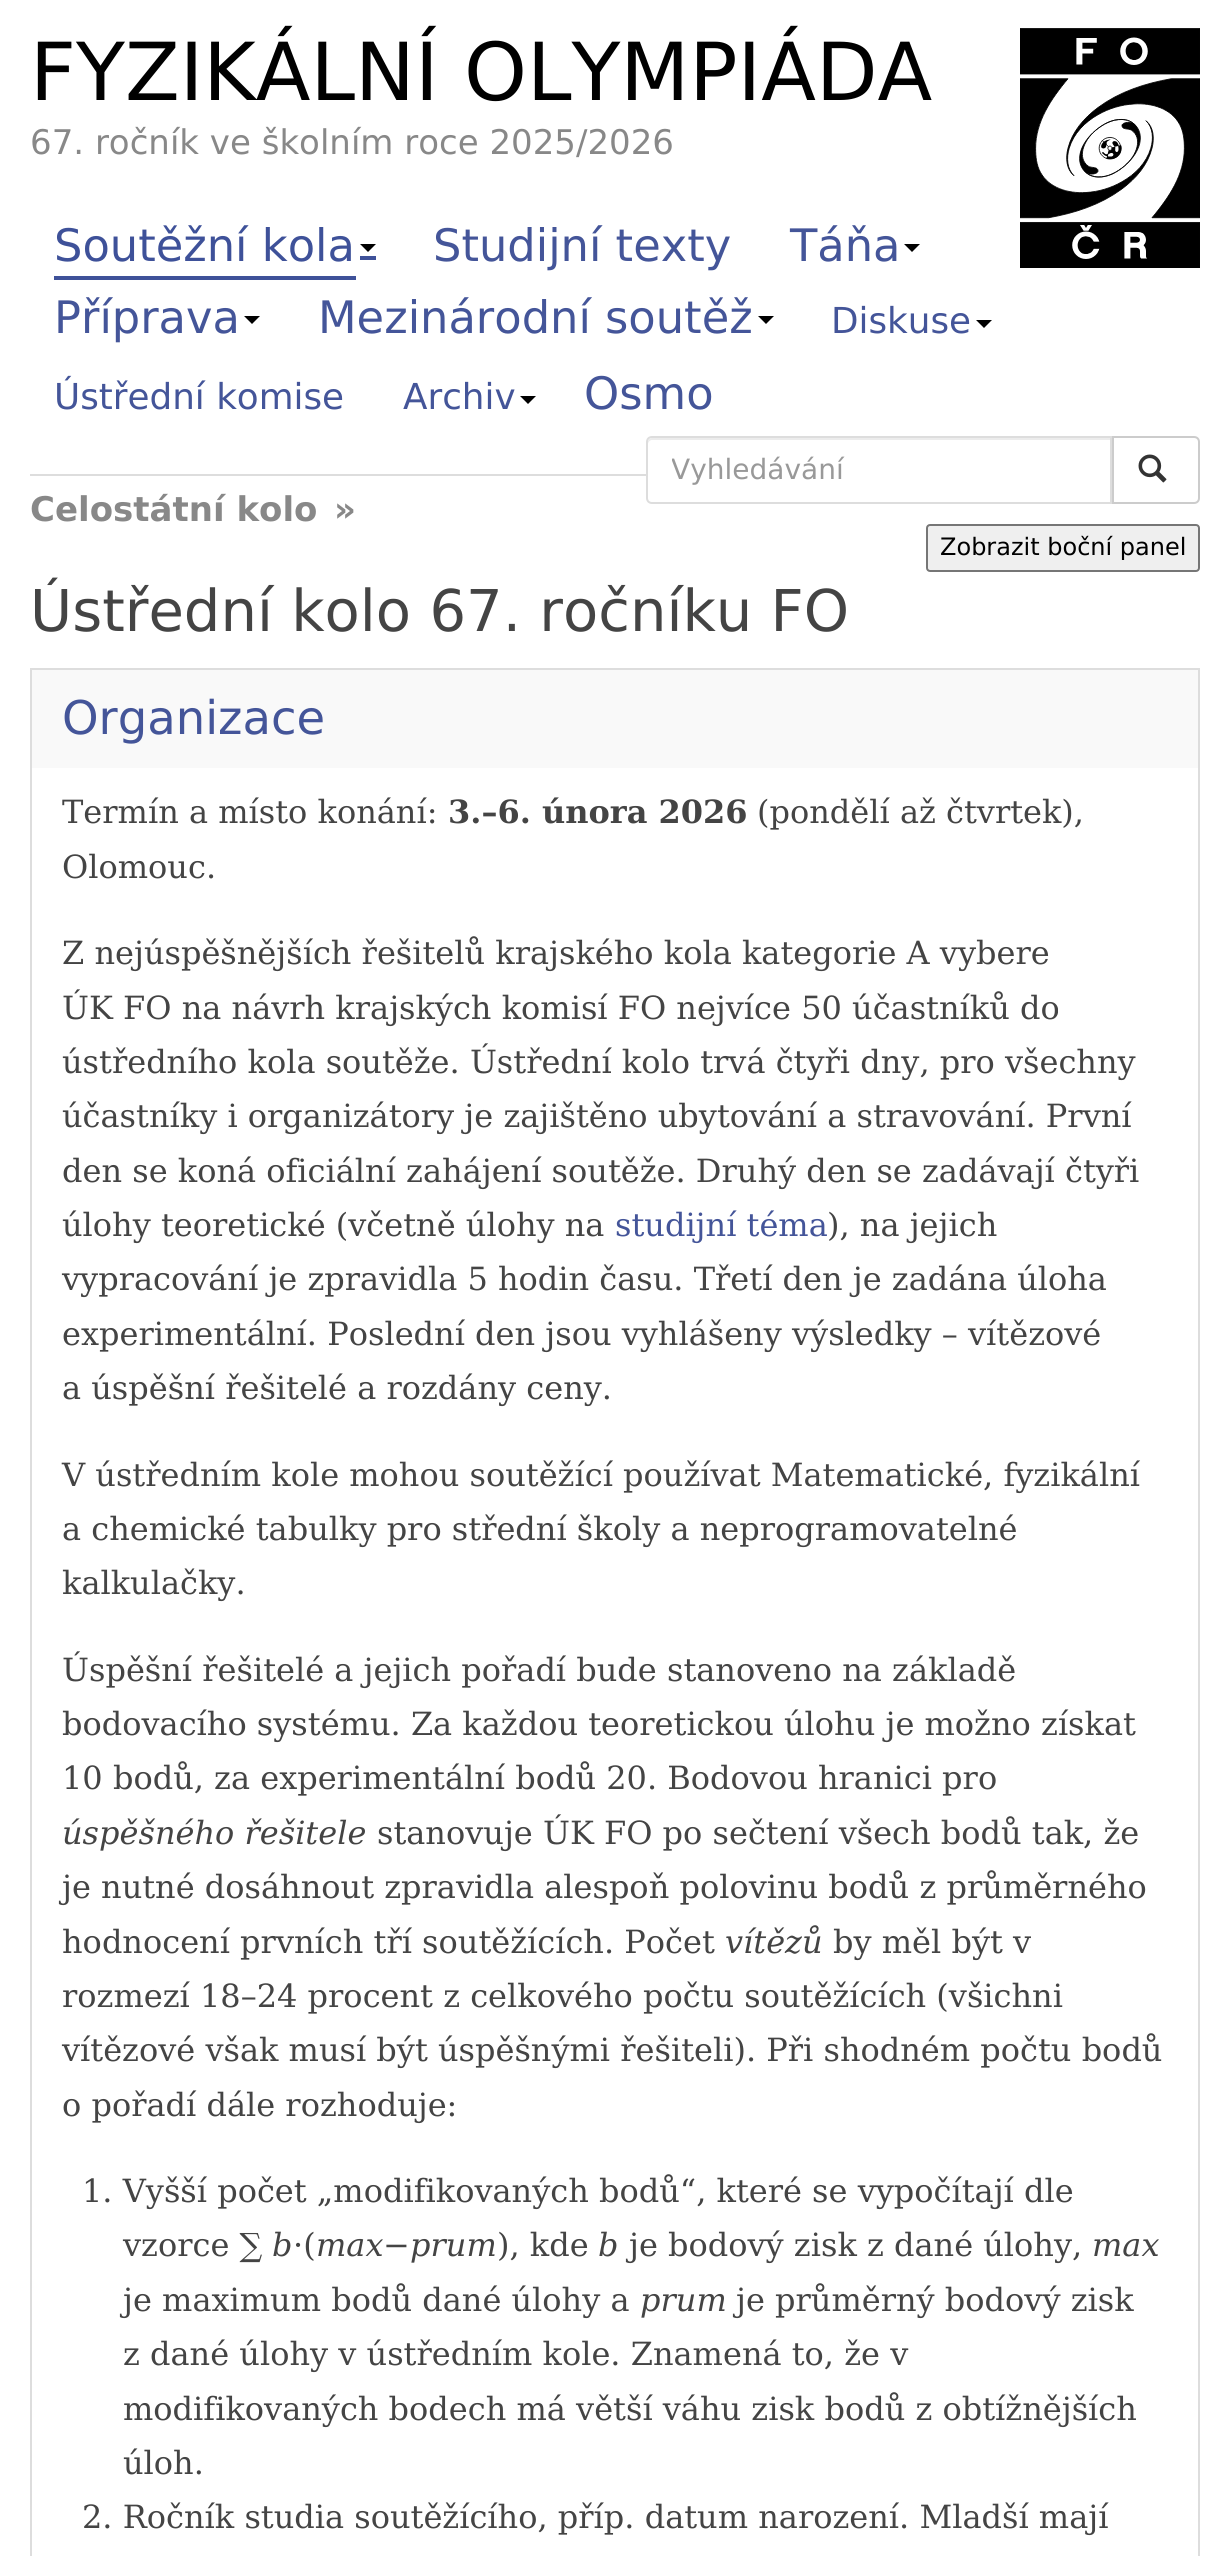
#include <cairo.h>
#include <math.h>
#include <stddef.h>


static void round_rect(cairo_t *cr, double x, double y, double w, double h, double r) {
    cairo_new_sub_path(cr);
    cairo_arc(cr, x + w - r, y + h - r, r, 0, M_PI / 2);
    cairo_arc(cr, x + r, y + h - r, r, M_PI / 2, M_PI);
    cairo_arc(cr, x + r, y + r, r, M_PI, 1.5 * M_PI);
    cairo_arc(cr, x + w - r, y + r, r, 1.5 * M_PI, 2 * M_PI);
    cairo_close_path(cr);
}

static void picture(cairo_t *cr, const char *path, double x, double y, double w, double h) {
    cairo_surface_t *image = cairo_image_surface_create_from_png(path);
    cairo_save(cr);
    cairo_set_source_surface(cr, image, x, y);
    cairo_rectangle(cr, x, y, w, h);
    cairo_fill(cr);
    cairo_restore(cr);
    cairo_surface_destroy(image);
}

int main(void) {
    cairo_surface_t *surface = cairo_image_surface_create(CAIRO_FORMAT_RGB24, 1229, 2556);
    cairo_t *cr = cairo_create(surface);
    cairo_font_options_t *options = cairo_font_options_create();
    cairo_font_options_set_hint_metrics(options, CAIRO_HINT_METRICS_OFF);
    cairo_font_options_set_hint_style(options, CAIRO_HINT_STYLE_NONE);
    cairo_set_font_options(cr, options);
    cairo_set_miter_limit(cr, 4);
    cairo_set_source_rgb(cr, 1, 1, 1);
    cairo_paint(cr);
    cairo_select_font_face(cr, "DejaVu Sans", CAIRO_FONT_SLANT_NORMAL, CAIRO_FONT_WEIGHT_NORMAL);
    cairo_set_font_size(cr, 80);
    cairo_set_source_rgb(cr, 0, 0, 0);
    cairo_move_to(cr, 30, 100);
    cairo_show_text(cr, "FYZIKÁLNÍ OLYMPIÁDA");
    picture(cr, "img1.png", 1020, 28, 180, 240);
    cairo_set_font_size(cr, 34);
    cairo_set_source_rgb(cr, 0.533, 0.533, 0.533);
    cairo_move_to(cr, 30, 154);
    cairo_show_text(cr, "67. ročník ve školním roce 2025/2026");
    cairo_set_source_rgb(cr, 0.243, 0.318, 0.6);
    cairo_rectangle(cr, 54, 276, 302, 4);
    cairo_fill(cr);
    cairo_rectangle(cr, 360, 256, 16, 4);
    cairo_fill(cr);
    cairo_set_font_size(cr, 44.75);
    cairo_move_to(cr, 54, 261);
    cairo_show_text(cr, "Soutěžní kola");
    cairo_set_source_rgb(cr, 0, 0, 0);
    cairo_new_path(cr);
    cairo_move_to(cr, 360, 244);
    cairo_line_to(cr, 376, 244);
    cairo_line_to(cr, 368, 252);
    cairo_close_path(cr);
    cairo_fill(cr);
    cairo_set_source_rgb(cr, 0.267, 0.333, 0.6);
    cairo_move_to(cr, 433, 261);
    cairo_show_text(cr, "Studijní texty");
    cairo_move_to(cr, 790, 261);
    cairo_show_text(cr, "Táňa");
    cairo_set_source_rgb(cr, 0, 0, 0);
    cairo_new_path(cr);
    cairo_move_to(cr, 904, 244);
    cairo_line_to(cr, 920, 244);
    cairo_line_to(cr, 912, 252);
    cairo_close_path(cr);
    cairo_fill(cr);
    cairo_set_source_rgb(cr, 0.267, 0.333, 0.6);
    cairo_move_to(cr, 54, 333);
    cairo_show_text(cr, "Příprava");
    cairo_set_source_rgb(cr, 0, 0, 0);
    cairo_new_path(cr);
    cairo_move_to(cr, 244, 316);
    cairo_line_to(cr, 260, 316);
    cairo_line_to(cr, 252, 324);
    cairo_close_path(cr);
    cairo_fill(cr);
    cairo_set_source_rgb(cr, 0.267, 0.333, 0.6);
    cairo_move_to(cr, 318, 333);
    cairo_show_text(cr, "Mezinárodní soutěž");
    cairo_set_source_rgb(cr, 0, 0, 0);
    cairo_new_path(cr);
    cairo_move_to(cr, 758, 316);
    cairo_line_to(cr, 774, 316);
    cairo_line_to(cr, 766, 324);
    cairo_close_path(cr);
    cairo_fill(cr);
    cairo_set_font_size(cr, 35.75);
    cairo_set_source_rgb(cr, 0.267, 0.333, 0.6);
    cairo_move_to(cr, 831, 333);
    cairo_show_text(cr, "Diskuse");
    cairo_set_source_rgb(cr, 0, 0, 0);
    cairo_new_path(cr);
    cairo_move_to(cr, 976, 320);
    cairo_line_to(cr, 992, 320);
    cairo_line_to(cr, 984, 328);
    cairo_close_path(cr);
    cairo_fill(cr);
    cairo_set_source_rgb(cr, 0.267, 0.333, 0.6);
    cairo_move_to(cr, 54, 409);
    cairo_show_text(cr, "Ústřední komise");
    cairo_move_to(cr, 403, 409);
    cairo_show_text(cr, "Archiv");
    cairo_set_source_rgb(cr, 0, 0, 0);
    cairo_new_path(cr);
    cairo_move_to(cr, 520, 396);
    cairo_line_to(cr, 536, 396);
    cairo_line_to(cr, 528, 404);
    cairo_close_path(cr);
    cairo_fill(cr);
    cairo_set_font_size(cr, 44.75);
    cairo_set_source_rgb(cr, 0.267, 0.333, 0.6);
    cairo_move_to(cr, 584, 409);
    cairo_show_text(cr, "Osmo");
    cairo_set_source_rgb(cr, 0.925, 0.925, 0.925);
    cairo_new_path(cr);
    cairo_move_to(cr, 652, 440);
    cairo_line_to(cr, 1110, 440);
    cairo_line_to(cr, 1110, 438);
    cairo_line_to(cr, 652, 438);
    cairo_curve_to(cr, 650, 438, 648, 440, 648, 442);
    cairo_line_to(cr, 648, 444);
    cairo_curve_to(cr, 648, 442, 650, 440, 652, 440);
    cairo_close_path(cr);
    cairo_fill(cr);
    cairo_new_path(cr);
    cairo_move_to(cr, 652, 437);
    cairo_line_to(cr, 1111, 437);
    cairo_line_to(cr, 1111, 503);
    cairo_line_to(cr, 652, 503);
    cairo_curve_to(cr, 649, 503, 647, 501, 647, 498);
    cairo_line_to(cr, 647, 442);
    cairo_curve_to(cr, 647, 439, 649, 437, 652, 437);
    cairo_close_path(cr);
    cairo_set_source_rgb(cr, 0.867, 0.867, 0.867);
    cairo_stroke(cr);
    cairo_save(cr);
    cairo_rectangle(cr, 672, 454, 414, 32);
    cairo_clip(cr);
    cairo_set_font_size(cr, 28);
    cairo_set_source_rgb(cr, 0.6, 0.6, 0.6);
    cairo_move_to(cr, 671, 479);
    cairo_show_text(cr, "Vyhledávání");
    cairo_restore(cr);
    cairo_new_path(cr);
    cairo_move_to(cr, 1113, 437);
    cairo_line_to(cr, 1194, 437);
    cairo_curve_to(cr, 1197, 437, 1199, 439, 1199, 442);
    cairo_line_to(cr, 1199, 498);
    cairo_curve_to(cr, 1199, 501, 1197, 503, 1194, 503);
    cairo_line_to(cr, 1113, 503);
    cairo_close_path(cr);
    cairo_set_source_rgb(cr, 0.8, 0.8, 0.8);
    cairo_stroke(cr);
    picture(cr, "img2.png", 1138, 454, 29, 29);
    cairo_set_source_rgb(cr, 0.867, 0.867, 0.867);
    cairo_rectangle(cr, 30, 474, 616, 2);
    cairo_fill(cr);
    cairo_select_font_face(cr, "DejaVu Sans", CAIRO_FONT_SLANT_NORMAL, CAIRO_FONT_WEIGHT_BOLD);
    cairo_set_font_size(cr, 34);
    cairo_set_source_rgb(cr, 0.533, 0.533, 0.533);
    cairo_move_to(cr, 30, 521);
    cairo_show_text(cr, "Celostátní kolo");
    cairo_move_to(cr, 334, 521);
    cairo_show_text(cr, "»");
    cairo_set_source_rgb(cr, 0.937, 0.937, 0.937);
    round_rect(cr, 927, 525, 272, 46, 3);
    cairo_fill_preserve(cr);
    cairo_set_source_rgb(cr, 0.463, 0.463, 0.463);
    cairo_stroke(cr);
    cairo_select_font_face(cr, "DejaVu Sans", CAIRO_FONT_SLANT_NORMAL, CAIRO_FONT_WEIGHT_NORMAL);
    cairo_set_font_size(cr, 24);
    cairo_set_source_rgb(cr, 0, 0, 0);
    cairo_move_to(cr, 940, 555);
    cairo_show_text(cr, "Zobrazit boční panel");
    cairo_set_font_size(cr, 57.6);
    cairo_set_source_rgb(cr, 0.267, 0.267, 0.267);
    cairo_move_to(cr, 30, 631);
    cairo_show_text(cr, "Ústřední kolo 67. ročníku FO");
    cairo_set_source_rgb(cr, 0.976, 0.976, 0.976);
    cairo_rectangle(cr, 32, 670, 1166, 98);
    cairo_fill(cr);
    cairo_set_source_rgb(cr, 0.867, 0.867, 0.867);
    cairo_rectangle(cr, 30, 668, 1170, 2);
    cairo_fill(cr);
    cairo_rectangle(cr, 1198, 668, 2, 1888);
    cairo_fill(cr);
    cairo_rectangle(cr, 30, 668, 2, 1888);
    cairo_fill(cr);
    cairo_set_font_size(cr, 46.5);
    cairo_set_source_rgb(cr, 0.267, 0.333, 0.6);
    cairo_move_to(cr, 62, 734);
    cairo_show_text(cr, "Organizace");
    cairo_select_font_face(cr, "DejaVu Serif", CAIRO_FONT_SLANT_NORMAL, CAIRO_FONT_WEIGHT_NORMAL);
    cairo_set_font_size(cr, 32);
    cairo_set_source_rgb(cr, 0.267, 0.267, 0.267);
    cairo_move_to(cr, 62, 823);
    cairo_show_text(cr, "Termín a místo konání:");
    cairo_select_font_face(cr, "DejaVu Serif", CAIRO_FONT_SLANT_NORMAL, CAIRO_FONT_WEIGHT_BOLD);
    cairo_move_to(cr, 448, 823);
    cairo_show_text(cr, "3.–6. února 2026");
    cairo_select_font_face(cr, "DejaVu Serif", CAIRO_FONT_SLANT_NORMAL, CAIRO_FONT_WEIGHT_NORMAL);
    cairo_move_to(cr, 757, 823);
    cairo_show_text(cr, "(pondělí až čtvrtek),");
    cairo_move_to(cr, 62, 878);
    cairo_show_text(cr, "Olomouc.");
    cairo_move_to(cr, 62, 964);
    cairo_show_text(cr, "Z nejúspěšnějších řešitelů krajského kola kategorie A vybere");
    cairo_move_to(cr, 62, 1019);
    cairo_show_text(cr, "ÚK FO na návrh krajských komisí FO nejvíce 50 účastníků do");
    cairo_move_to(cr, 62, 1073);
    cairo_show_text(cr, "ústředního kola soutěže. Ústřední kolo trvá čtyři dny, pro všechny");
    cairo_move_to(cr, 62, 1127);
    cairo_show_text(cr, "účastníky i organizátory je zajištěno ubytování a stravování. První");
    cairo_move_to(cr, 62, 1182);
    cairo_show_text(cr, "den se koná oficiální zahájení soutěže. Druhý den se zadávají čtyři");
    cairo_move_to(cr, 62, 1236);
    cairo_show_text(cr, "úlohy teoretické (včetně úlohy na");
    cairo_set_source_rgb(cr, 0.267, 0.333, 0.6);
    cairo_move_to(cr, 615, 1236);
    cairo_show_text(cr, "studijní téma");
    cairo_set_source_rgb(cr, 0.267, 0.267, 0.267);
    cairo_move_to(cr, 827, 1236);
    cairo_show_text(cr, "), na jejich");
    cairo_move_to(cr, 62, 1290);
    cairo_show_text(cr, "vypracování je zpravidla 5 hodin času. Třetí den je zadána úloha");
    cairo_move_to(cr, 62, 1345);
    cairo_show_text(cr, "experimentální. Poslední den jsou vyhlášeny výsledky – vítězové");
    cairo_move_to(cr, 62, 1399);
    cairo_show_text(cr, "a úspěšní řešitelé a rozdány ceny.");
    cairo_move_to(cr, 62, 1486);
    cairo_show_text(cr, "V ústředním kole mohou soutěžící používat Matematické, fyzikální");
    cairo_move_to(cr, 62, 1540);
    cairo_show_text(cr, "a chemické tabulky pro střední školy a neprogramovatelné");
    cairo_move_to(cr, 62, 1594);
    cairo_show_text(cr, "kalkulačky.");
    cairo_move_to(cr, 62, 1681);
    cairo_show_text(cr, "Úspěšní řešitelé a jejich pořadí bude stanoveno na základě");
    cairo_move_to(cr, 62, 1735);
    cairo_show_text(cr, "bodovacího systému. Za každou teoretickou úlohu je možno získat");
    cairo_move_to(cr, 62, 1789);
    cairo_show_text(cr, "10 bodů, za experimentální bodů 20. Bodovou hranici pro");
    cairo_select_font_face(cr, "DejaVu Serif", CAIRO_FONT_SLANT_ITALIC, CAIRO_FONT_WEIGHT_NORMAL);
    cairo_move_to(cr, 62, 1844);
    cairo_show_text(cr, "úspěšného řešitele");
    cairo_select_font_face(cr, "DejaVu Serif", CAIRO_FONT_SLANT_NORMAL, CAIRO_FONT_WEIGHT_NORMAL);
    cairo_move_to(cr, 377, 1844);
    cairo_show_text(cr, "stanovuje ÚK FO po sečtení všech bodů tak, že");
    cairo_move_to(cr, 62, 1898);
    cairo_show_text(cr, "je nutné dosáhnout zpravidla alespoň polovinu bodů z průměrného");
    cairo_move_to(cr, 62, 1953);
    cairo_show_text(cr, "hodnocení prvních tří soutěžících. Počet");
    cairo_select_font_face(cr, "DejaVu Serif", CAIRO_FONT_SLANT_ITALIC, CAIRO_FONT_WEIGHT_NORMAL);
    cairo_move_to(cr, 725, 1953);
    cairo_show_text(cr, "vítězů");
    cairo_select_font_face(cr, "DejaVu Serif", CAIRO_FONT_SLANT_NORMAL, CAIRO_FONT_WEIGHT_NORMAL);
    cairo_move_to(cr, 833, 1953);
    cairo_show_text(cr, "by měl být v");
    cairo_move_to(cr, 62, 2007);
    cairo_show_text(cr, "rozmezí 18–24 procent z celkového počtu soutěžících (všichni");
    cairo_move_to(cr, 62, 2061);
    cairo_show_text(cr, "vítězové však musí být úspěšnými řešiteli). Při shodném počtu bodů");
    cairo_move_to(cr, 62, 2116);
    cairo_show_text(cr, "o pořadí dále rozhoduje:");
    cairo_move_to(cr, 82, 2202);
    cairo_show_text(cr, "1. Vyšší počet „modifikovaných bodů“, které se vypočítají dle");
    cairo_move_to(cr, 123, 2256);
    cairo_show_text(cr, "vzorce ∑");
    cairo_select_font_face(cr, "DejaVu Serif", CAIRO_FONT_SLANT_ITALIC, CAIRO_FONT_WEIGHT_NORMAL);
    cairo_move_to(cr, 272, 2256);
    cairo_show_text(cr, "b");
    cairo_select_font_face(cr, "DejaVu Serif", CAIRO_FONT_SLANT_NORMAL, CAIRO_FONT_WEIGHT_NORMAL);
    cairo_move_to(cr, 293, 2256);
    cairo_show_text(cr, "·(");
    cairo_select_font_face(cr, "DejaVu Serif", CAIRO_FONT_SLANT_ITALIC, CAIRO_FONT_WEIGHT_NORMAL);
    cairo_move_to(cr, 316, 2256);
    cairo_show_text(cr, "max");
    cairo_select_font_face(cr, "DejaVu Serif", CAIRO_FONT_SLANT_NORMAL, CAIRO_FONT_WEIGHT_NORMAL);
    cairo_move_to(cr, 383, 2256);
    cairo_show_text(cr, "−");
    cairo_select_font_face(cr, "DejaVu Serif", CAIRO_FONT_SLANT_ITALIC, CAIRO_FONT_WEIGHT_NORMAL);
    cairo_move_to(cr, 410, 2256);
    cairo_show_text(cr, "prum");
    cairo_select_font_face(cr, "DejaVu Serif", CAIRO_FONT_SLANT_NORMAL, CAIRO_FONT_WEIGHT_NORMAL);
    cairo_move_to(cr, 497, 2256);
    cairo_show_text(cr, "), kde");
    cairo_select_font_face(cr, "DejaVu Serif", CAIRO_FONT_SLANT_ITALIC, CAIRO_FONT_WEIGHT_NORMAL);
    cairo_move_to(cr, 598, 2256);
    cairo_show_text(cr, "b");
    cairo_select_font_face(cr, "DejaVu Serif", CAIRO_FONT_SLANT_NORMAL, CAIRO_FONT_WEIGHT_NORMAL);
    cairo_move_to(cr, 629, 2256);
    cairo_show_text(cr, "je bodový zisk z dané úlohy,");
    cairo_select_font_face(cr, "DejaVu Serif", CAIRO_FONT_SLANT_ITALIC, CAIRO_FONT_WEIGHT_NORMAL);
    cairo_move_to(cr, 1092, 2256);
    cairo_show_text(cr, "max");
    cairo_select_font_face(cr, "DejaVu Serif", CAIRO_FONT_SLANT_NORMAL, CAIRO_FONT_WEIGHT_NORMAL);
    cairo_move_to(cr, 123, 2311);
    cairo_show_text(cr, "je maximum bodů dané úlohy a");
    cairo_select_font_face(cr, "DejaVu Serif", CAIRO_FONT_SLANT_ITALIC, CAIRO_FONT_WEIGHT_NORMAL);
    cairo_move_to(cr, 640, 2311);
    cairo_show_text(cr, "prum");
    cairo_select_font_face(cr, "DejaVu Serif", CAIRO_FONT_SLANT_NORMAL, CAIRO_FONT_WEIGHT_NORMAL);
    cairo_move_to(cr, 736, 2311);
    cairo_show_text(cr, "je průměrný bodový zisk");
    cairo_move_to(cr, 123, 2365);
    cairo_show_text(cr, "z dané úlohy v ústředním kole. Znamená to, že v");
    cairo_move_to(cr, 123, 2420);
    cairo_show_text(cr, "modifikovaných bodech má větší váhu zisk bodů z obtížnějších");
    cairo_move_to(cr, 123, 2474);
    cairo_show_text(cr, "úloh.");
    cairo_move_to(cr, 82, 2528);
    cairo_show_text(cr, "2. Ročník studia soutěžícího, příp. datum narození. Mladší mají");
    cairo_surface_write_to_png(surface, "page.png");
    cairo_font_options_destroy(options);
    cairo_destroy(cr);
    cairo_surface_destroy(surface);
    return 0;
}
